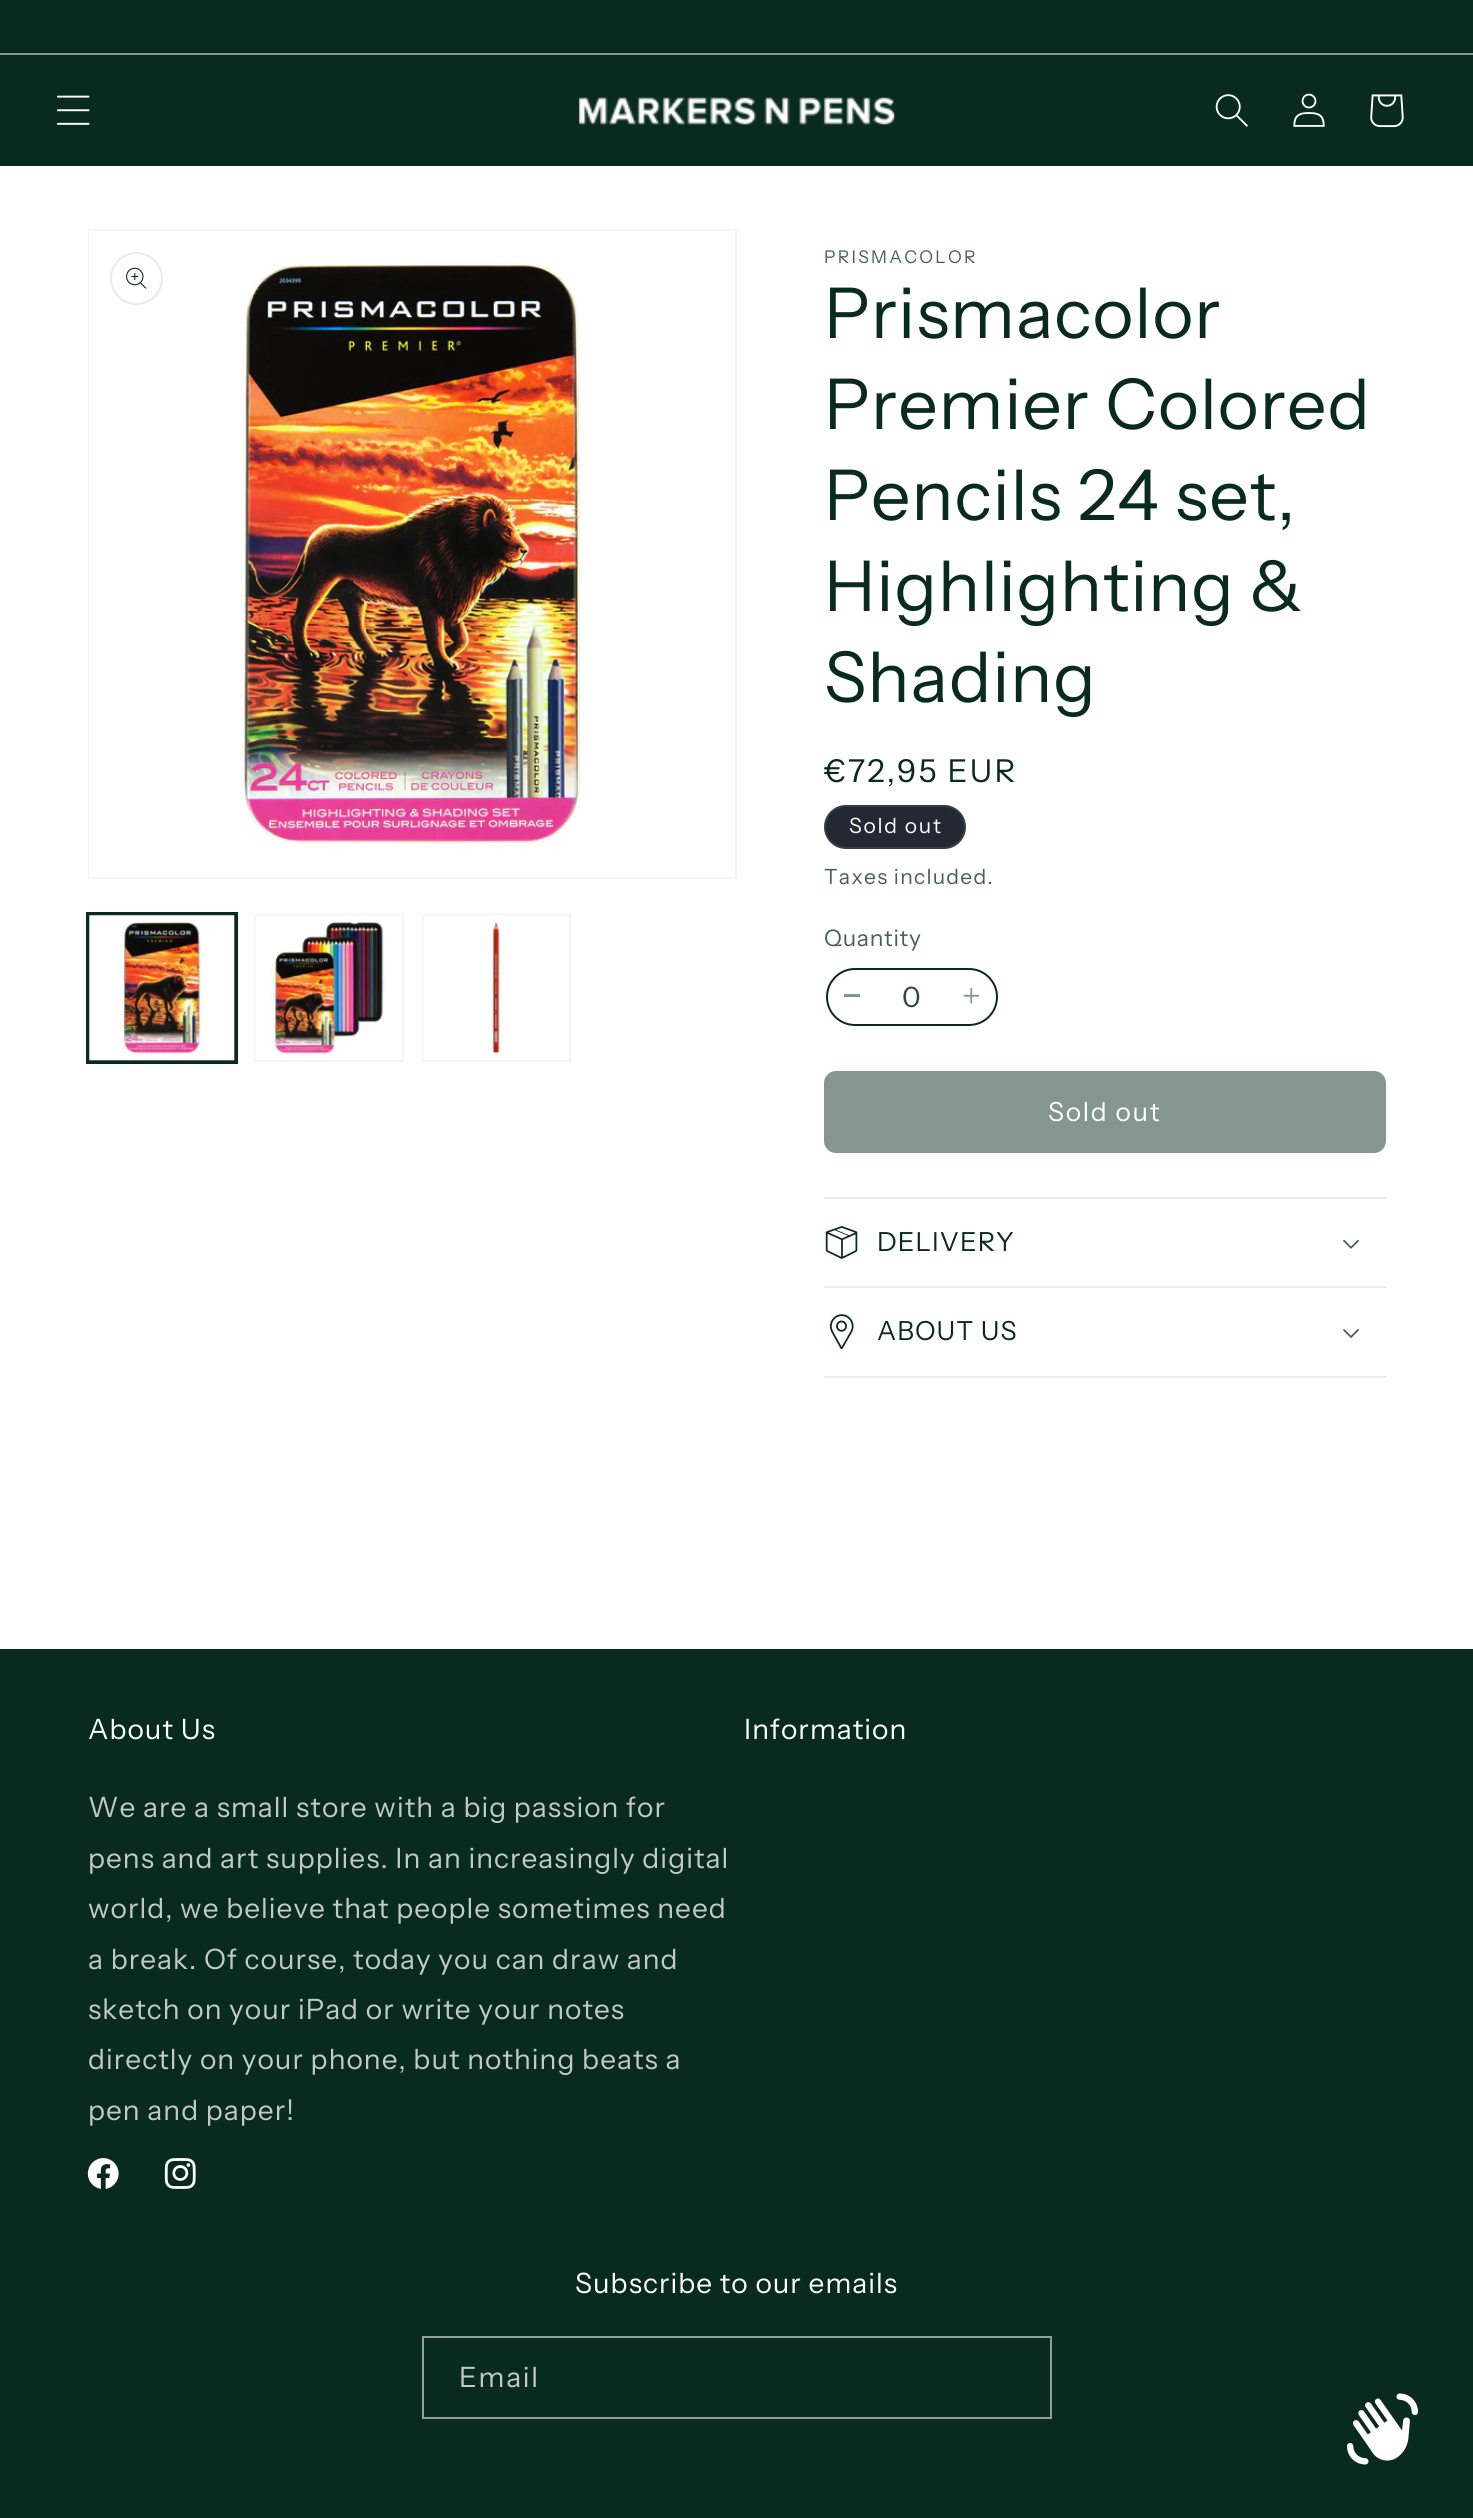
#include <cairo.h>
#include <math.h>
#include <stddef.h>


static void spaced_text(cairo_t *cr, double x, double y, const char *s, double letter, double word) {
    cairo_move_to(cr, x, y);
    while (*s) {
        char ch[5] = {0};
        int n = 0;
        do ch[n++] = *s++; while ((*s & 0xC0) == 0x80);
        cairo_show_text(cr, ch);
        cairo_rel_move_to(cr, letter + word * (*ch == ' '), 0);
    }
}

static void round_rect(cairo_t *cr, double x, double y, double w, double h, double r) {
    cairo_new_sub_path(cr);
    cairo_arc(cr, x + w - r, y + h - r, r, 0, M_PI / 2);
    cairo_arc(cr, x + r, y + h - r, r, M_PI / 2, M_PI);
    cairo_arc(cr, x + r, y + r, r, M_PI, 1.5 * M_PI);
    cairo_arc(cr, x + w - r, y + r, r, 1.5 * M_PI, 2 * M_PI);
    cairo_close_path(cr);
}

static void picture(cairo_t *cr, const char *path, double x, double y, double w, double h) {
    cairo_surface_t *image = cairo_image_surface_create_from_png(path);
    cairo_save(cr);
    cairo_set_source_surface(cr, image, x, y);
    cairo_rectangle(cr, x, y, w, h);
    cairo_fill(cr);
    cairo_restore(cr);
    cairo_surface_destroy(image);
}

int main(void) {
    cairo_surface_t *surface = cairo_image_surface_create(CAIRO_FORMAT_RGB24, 1473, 2518);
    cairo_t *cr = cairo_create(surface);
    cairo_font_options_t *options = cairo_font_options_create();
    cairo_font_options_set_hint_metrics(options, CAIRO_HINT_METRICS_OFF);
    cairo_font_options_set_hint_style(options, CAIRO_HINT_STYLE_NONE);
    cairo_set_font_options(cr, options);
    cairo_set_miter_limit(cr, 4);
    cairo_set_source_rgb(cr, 1, 1, 1);
    cairo_paint(cr);
    cairo_set_source_rgb(cr, 0.039, 0.165, 0.122);
    cairo_rectangle(cr, 0, 0, 1473, 53);
    cairo_fill(cr);
    cairo_set_source_rgb(cr, 0.522, 0.584, 0.561);
    cairo_rectangle(cr, 0, 53, 1473, 2);
    cairo_fill(cr);
    cairo_set_source_rgb(cr, 0.039, 0.165, 0.122);
    cairo_rectangle(cr, 0, 55, 1473, 111);
    cairo_fill(cr);
    picture(cr, "img1.png", 57, 95, 33, 30);
    picture(cr, "img2.png", 579, 97, 316, 28);
    picture(cr, "img3.png", 1215, 94, 33, 33);
    picture(cr, "img4.png", 1293, 93, 32, 34);
    picture(cr, "img5.png", 1370, 94, 34, 34);
    cairo_rectangle(cr, 89, 230, 647, 648);
    cairo_set_source_rgb(cr, 0.953, 0.957, 0.957);
    cairo_stroke(cr);
    picture(cr, "img6.png", 89, 231, 492, 646);
    cairo_arc(cr, 136.5, 278.5, 25.5, 0, 2 * M_PI);
    cairo_set_source_rgb(cr, 0.906, 0.918, 0.914);
    cairo_stroke(cr);
    picture(cr, "img7.png", 126, 267, 21, 22);
    cairo_rectangle(cr, 87, 913, 150, 150);
    cairo_set_source_rgb(cr, 0.039, 0.165, 0.122);
    cairo_stroke(cr);
    cairo_rectangle(cr, 89, 915, 146, 146);
    cairo_stroke(cr);
    picture(cr, "img8.png", 89, 915, 146, 146);
    cairo_rectangle(cr, 255, 915, 148, 146);
    cairo_set_source_rgb(cr, 0.953, 0.957, 0.957);
    cairo_stroke(cr);
    picture(cr, "img9.png", 255, 915, 147, 145);
    cairo_rectangle(cr, 423, 915, 147, 146);
    cairo_stroke(cr);
    picture(cr, "img10.png", 423, 915, 145, 145);
    cairo_select_font_face(cr, "Instrument Sans", CAIRO_FONT_SLANT_NORMAL, CAIRO_FONT_WEIGHT_NORMAL);
    cairo_set_font_size(cr, 17.5);
    cairo_set_source_rgb(cr, 0.278, 0.373, 0.341);
    spaced_text(cr, 824, 263, "PRISMACOLOR", 2.25, 0);
    cairo_set_font_size(cr, 70);
    cairo_set_source_rgb(cr, 0.039, 0.165, 0.122);
    spaced_text(cr, 824, 338, "Prismacolor", 1.05, 0);
    spaced_text(cr, 824, 429, "Premier Colored", 1.05, 0);
    spaced_text(cr, 824, 520, "Pencils 24 set,", 1.05, 0);
    spaced_text(cr, 824, 611, "Highlighting &", 1.05, 0);
    spaced_text(cr, 824, 702, "Shading", 1.05, 0);
    cairo_set_font_size(cr, 31.5);
    spaced_text(cr, 824, 782, "€72,95 EUR", 2.25, 0);
    cairo_set_source_rgb(cr, 0.141, 0.157, 0.2);
    round_rect(cr, 824, 805, 142, 44, 22);
    cairo_fill(cr);
    round_rect(cr, 825, 806, 140, 42, 21);
    cairo_set_source_rgba(cr, 1, 1, 1, 0.1);
    cairo_stroke(cr);
    cairo_set_font_size(cr, 21);
    cairo_set_source_rgb(cr, 1, 1, 1);
    spaced_text(cr, 849, 833, "Sold out", 1.75, 0);
    cairo_set_source_rgb(cr, 0.278, 0.373, 0.341);
    spaced_text(cr, 824, 884, "Taxes included.", 1.25, 0);
    cairo_set_font_size(cr, 22.75);
    spaced_text(cr, 824, 946, "Quantity", 0.75, 0);
    cairo_set_source_rgb(cr, 0.522, 0.584, 0.561);
    cairo_rectangle(cr, 844, 994, 16, 3);
    cairo_fill(cr);
    picture(cr, "img11.png", 963, 987, 16, 17);
    round_rect(cr, 827, 969, 170, 56, 28);
    cairo_set_source_rgb(cr, 0.039, 0.165, 0.122);
    cairo_stroke(cr);
    cairo_set_font_size(cr, 28);
    cairo_set_source_rgb(cr, 0.184, 0.29, 0.255);
    cairo_move_to(cr, 902, 1007);
    cairo_show_text(cr, "0");
    cairo_set_source_rgb(cr, 0.522, 0.584, 0.561);
    round_rect(cr, 824, 1071, 562, 82, 12);
    cairo_fill(cr);
    cairo_set_font_size(cr, 26.25);
    cairo_set_source_rgb(cr, 1, 1, 1);
    spaced_text(cr, 1048, 1121, "Sold out", 1.75, 0);
    cairo_set_source_rgb(cr, 0.922, 0.933, 0.929);
    cairo_rectangle(cr, 824, 1197, 562, 2);
    cairo_fill(cr);
    cairo_rectangle(cr, 824, 1286, 562, 2);
    cairo_fill(cr);
    picture(cr, "img12.png", 825, 1226, 33, 33);
    cairo_set_source_rgb(cr, 0.039, 0.165, 0.122);
    spaced_text(cr, 877, 1251, "DELIVERY", 1.05, 0);
    picture(cr, "img13.png", 1343, 1240, 16, 9);
    cairo_set_source_rgb(cr, 0.922, 0.933, 0.929);
    cairo_rectangle(cr, 824, 1376, 562, 2);
    cairo_fill(cr);
    picture(cr, "img14.png", 829, 1314, 25, 35);
    cairo_set_source_rgb(cr, 0.039, 0.165, 0.122);
    spaced_text(cr, 877, 1340, "ABOUT US", 1.05, 0);
    picture(cr, "img15.png", 1343, 1329, 16, 9);
    cairo_rectangle(cr, 0, 1649, 1473, 869);
    cairo_fill(cr);
    cairo_set_font_size(cr, 28);
    cairo_set_source_rgb(cr, 1, 1, 1);
    spaced_text(cr, 88, 1739, "About Us", 1.05, 0);
    cairo_set_source_rgb(cr, 0.761, 0.792, 0.78);
    spaced_text(cr, 88, 1817, "We are a small store with a big passion for", 1.05, 0);
    spaced_text(cr, 88, 1868, "pens and art supplies. In an increasingly digital", 1.05, 0);
    spaced_text(cr, 88, 1918, "world, we believe that people sometimes need", 1.05, 0);
    spaced_text(cr, 88, 1969, "a break. Of course, today you can draw and", 1.05, 0);
    spaced_text(cr, 88, 2019, "sketch on your iPad or write your notes", 1.05, 0);
    spaced_text(cr, 88, 2069, "directly on your phone, but nothing beats a", 1.05, 0);
    spaced_text(cr, 88, 2120, "pen and paper!", 1.05, 0);
    picture(cr, "img16.png", 87, 2158, 32, 31);
    picture(cr, "img17.png", 164, 2158, 32, 31);
    cairo_set_source_rgb(cr, 1, 1, 1);
    spaced_text(cr, 744, 1739, "Information", 1.05, 0);
    spaced_text(cr, 575, 2293, "Subscribe to our emails", 1.05, 0);
    cairo_rectangle(cr, 423, 2337, 628, 81);
    cairo_set_source_rgb(cr, 0.569, 0.624, 0.604);
    cairo_stroke(cr);
    cairo_set_source_rgb(cr, 0.761, 0.792, 0.78);
    spaced_text(cr, 459, 2387, "Email", 1.75, 0);
    picture(cr, "img18.png", 1347, 2393, 71, 72);
    cairo_surface_write_to_png(surface, "page.png");
    cairo_font_options_destroy(options);
    cairo_destroy(cr);
    cairo_surface_destroy(surface);
    return 0;
}
